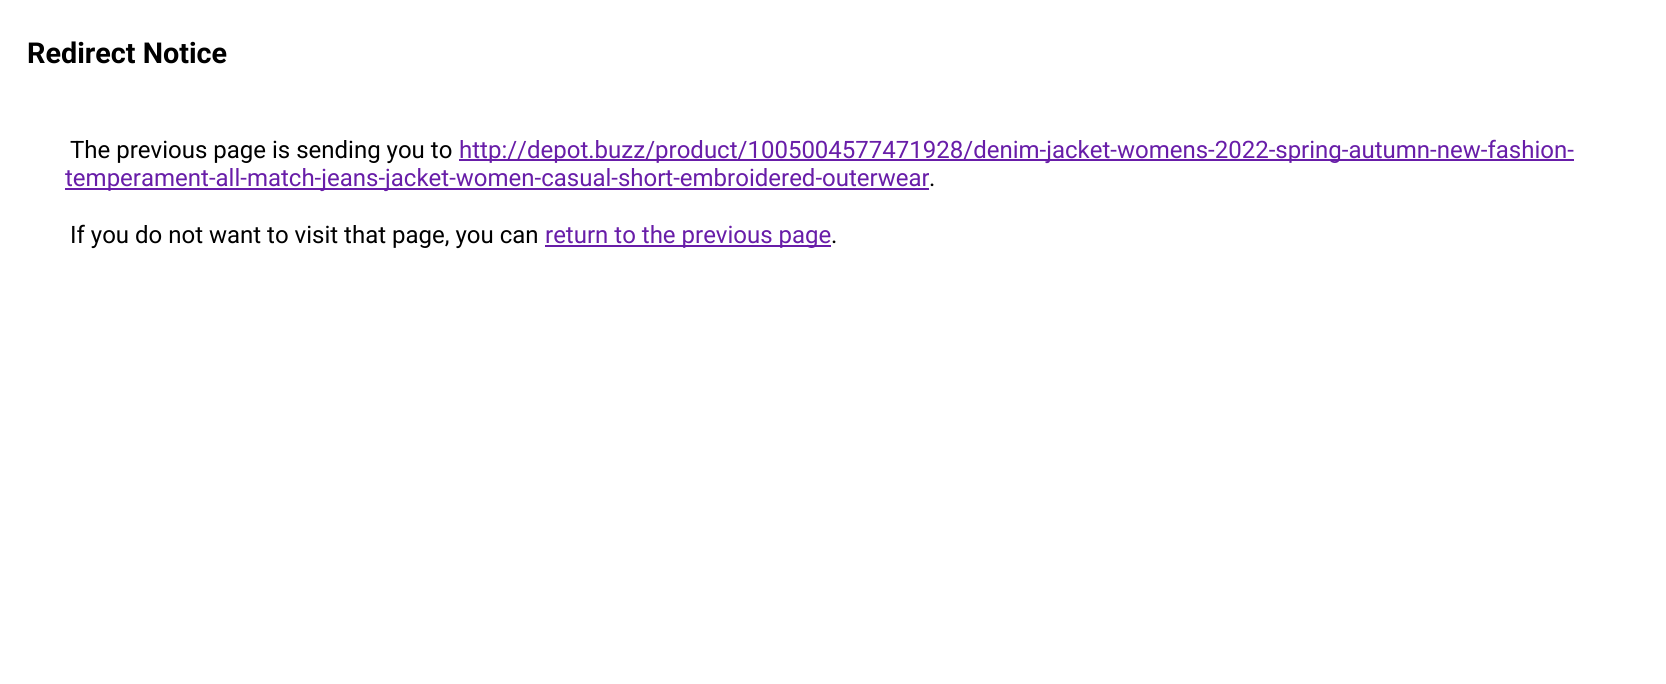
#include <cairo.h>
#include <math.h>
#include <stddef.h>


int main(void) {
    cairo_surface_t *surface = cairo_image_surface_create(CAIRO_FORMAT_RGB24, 1666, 684);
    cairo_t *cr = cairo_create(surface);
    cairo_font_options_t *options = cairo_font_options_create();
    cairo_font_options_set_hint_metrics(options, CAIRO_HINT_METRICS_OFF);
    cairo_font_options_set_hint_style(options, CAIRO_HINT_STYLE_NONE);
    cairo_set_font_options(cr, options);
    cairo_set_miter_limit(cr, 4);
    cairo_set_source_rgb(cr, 1, 1, 1);
    cairo_paint(cr);
    cairo_select_font_face(cr, "Roboto", CAIRO_FONT_SLANT_NORMAL, CAIRO_FONT_WEIGHT_BOLD);
    cairo_set_font_size(cr, 28.75);
    cairo_set_source_rgb(cr, 0, 0, 0);
    cairo_move_to(cr, 27, 63);
    cairo_show_text(cr, "Redirect Notice");
    cairo_select_font_face(cr, "Roboto", CAIRO_FONT_SLANT_NORMAL, CAIRO_FONT_WEIGHT_NORMAL);
    cairo_set_font_size(cr, 24);
    cairo_move_to(cr, 70, 158);
    cairo_show_text(cr, "The previous page is sending you to");
    cairo_set_source_rgb(cr, 0.408, 0.114, 0.659);
    cairo_rectangle(cr, 459, 159, 1115, 2);
    cairo_fill(cr);
    cairo_move_to(cr, 459, 158);
    cairo_show_text(cr, "http://depot.buzz/product/1005004577471928/denim-jacket-womens-2022-spring-autumn-new-fashion-");
    cairo_rectangle(cr, 65, 188, 864, 2);
    cairo_fill(cr);
    cairo_move_to(cr, 65, 186);
    cairo_show_text(cr, "temperament-all-match-jeans-jacket-women-casual-short-embroidered-outerwear");
    cairo_set_source_rgb(cr, 0, 0, 0);
    cairo_move_to(cr, 929, 186);
    cairo_show_text(cr, ".");
    cairo_move_to(cr, 70, 243);
    cairo_show_text(cr, "If you do not want to visit that page, you can");
    cairo_set_source_rgb(cr, 0.408, 0.114, 0.659);
    cairo_rectangle(cr, 545, 245, 286, 2);
    cairo_fill(cr);
    cairo_move_to(cr, 545, 243);
    cairo_show_text(cr, "return to the previous page");
    cairo_set_source_rgb(cr, 0, 0, 0);
    cairo_move_to(cr, 831, 243);
    cairo_show_text(cr, ".");
    cairo_surface_write_to_png(surface, "page.png");
    cairo_font_options_destroy(options);
    cairo_destroy(cr);
    cairo_surface_destroy(surface);
    return 0;
}
